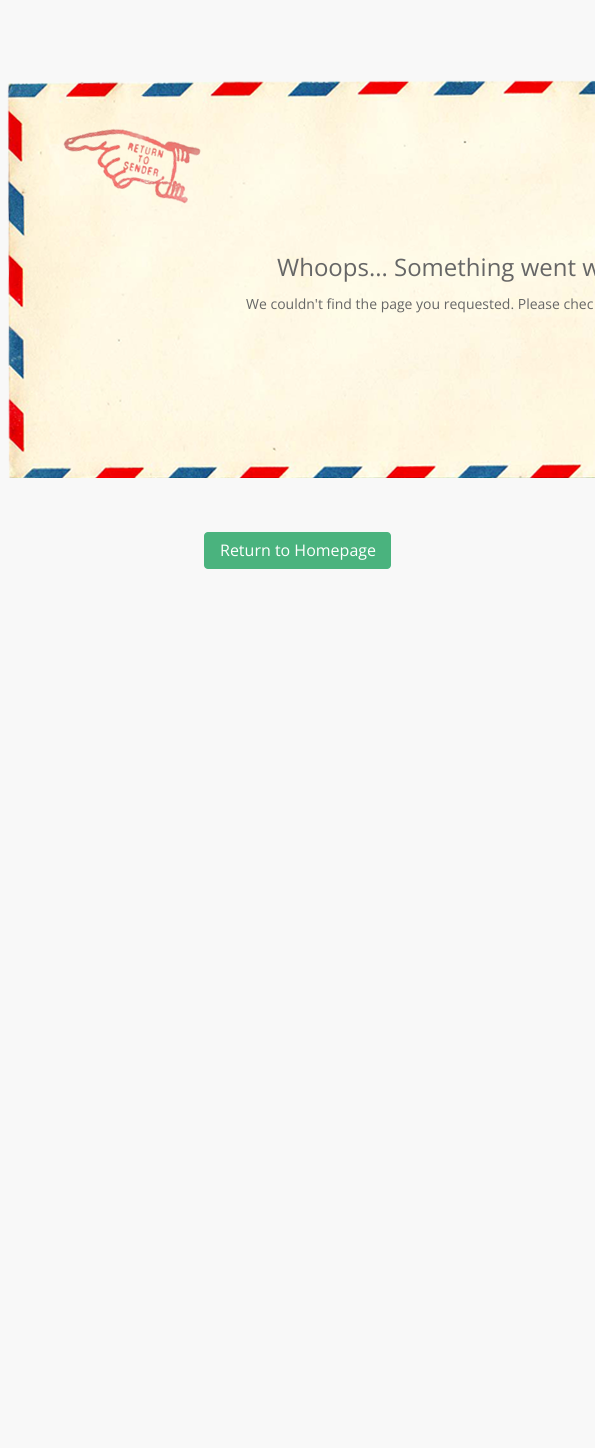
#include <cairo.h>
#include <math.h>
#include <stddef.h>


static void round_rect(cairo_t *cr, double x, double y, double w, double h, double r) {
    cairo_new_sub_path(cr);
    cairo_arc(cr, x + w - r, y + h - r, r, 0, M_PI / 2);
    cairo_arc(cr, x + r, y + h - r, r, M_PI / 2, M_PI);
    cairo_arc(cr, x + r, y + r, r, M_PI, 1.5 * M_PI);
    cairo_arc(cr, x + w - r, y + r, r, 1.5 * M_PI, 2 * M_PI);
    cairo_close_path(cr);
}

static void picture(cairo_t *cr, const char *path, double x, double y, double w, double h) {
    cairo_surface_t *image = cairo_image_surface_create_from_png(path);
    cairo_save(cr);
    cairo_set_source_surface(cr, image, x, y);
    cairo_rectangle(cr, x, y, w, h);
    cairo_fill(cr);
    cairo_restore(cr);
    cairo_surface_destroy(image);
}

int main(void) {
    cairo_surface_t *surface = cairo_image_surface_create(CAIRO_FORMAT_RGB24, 595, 1448);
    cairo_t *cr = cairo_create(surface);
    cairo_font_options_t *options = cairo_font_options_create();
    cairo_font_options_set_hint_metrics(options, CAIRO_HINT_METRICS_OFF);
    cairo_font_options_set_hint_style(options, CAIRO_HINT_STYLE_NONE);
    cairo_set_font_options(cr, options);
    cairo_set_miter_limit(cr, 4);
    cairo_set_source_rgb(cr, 0.969, 0.969, 0.969);
    cairo_paint(cr);
    picture(cr, "img1.png", 7, 80, 588, 398);
    cairo_select_font_face(cr, "Open Sans", CAIRO_FONT_SLANT_NORMAL, CAIRO_FONT_WEIGHT_NORMAL);
    cairo_set_font_size(cr, 24);
    cairo_set_source_rgb(cr, 0.4, 0.4, 0.4);
    cairo_move_to(cr, 277, 276);
    cairo_show_text(cr, "Whoops... Something went w");
    cairo_set_font_size(cr, 14);
    cairo_move_to(cr, 246, 309);
    cairo_show_text(cr, "We couldn't find the page you requested. Please chec");
    cairo_set_source_rgb(cr, 0.29, 0.702, 0.494);
    round_rect(cr, 204, 532, 187, 37, 4);
    cairo_fill(cr);
    cairo_set_font_size(cr, 16);
    cairo_set_source_rgb(cr, 1, 1, 1);
    cairo_move_to(cr, 220, 556);
    cairo_show_text(cr, "Return to Homepage");
    cairo_surface_write_to_png(surface, "page.png");
    cairo_font_options_destroy(options);
    cairo_destroy(cr);
    cairo_surface_destroy(surface);
    return 0;
}
